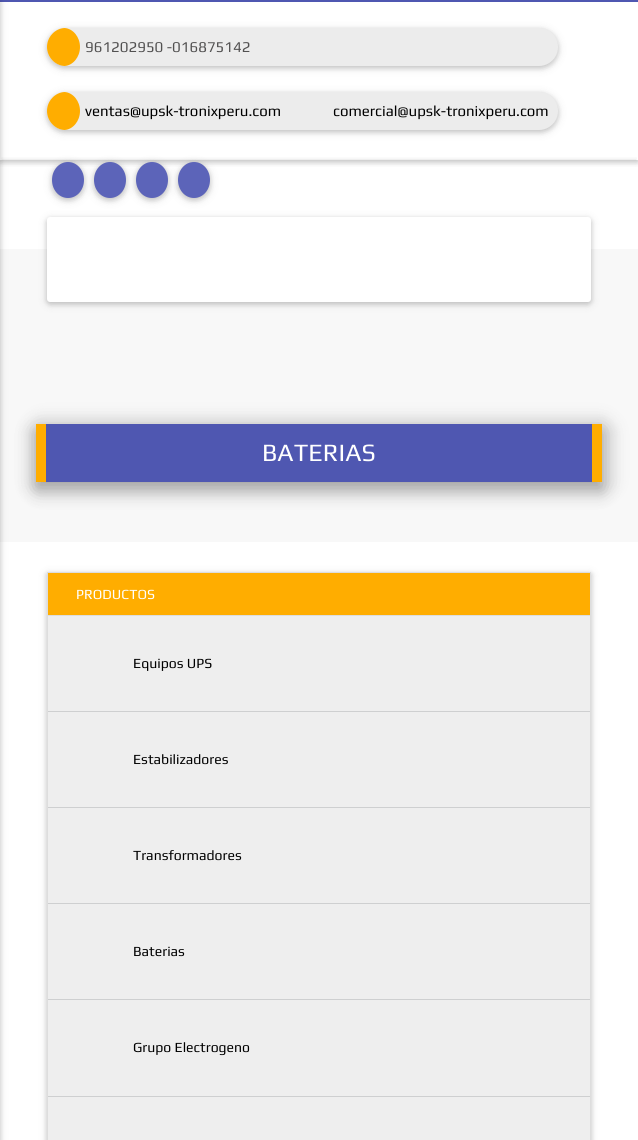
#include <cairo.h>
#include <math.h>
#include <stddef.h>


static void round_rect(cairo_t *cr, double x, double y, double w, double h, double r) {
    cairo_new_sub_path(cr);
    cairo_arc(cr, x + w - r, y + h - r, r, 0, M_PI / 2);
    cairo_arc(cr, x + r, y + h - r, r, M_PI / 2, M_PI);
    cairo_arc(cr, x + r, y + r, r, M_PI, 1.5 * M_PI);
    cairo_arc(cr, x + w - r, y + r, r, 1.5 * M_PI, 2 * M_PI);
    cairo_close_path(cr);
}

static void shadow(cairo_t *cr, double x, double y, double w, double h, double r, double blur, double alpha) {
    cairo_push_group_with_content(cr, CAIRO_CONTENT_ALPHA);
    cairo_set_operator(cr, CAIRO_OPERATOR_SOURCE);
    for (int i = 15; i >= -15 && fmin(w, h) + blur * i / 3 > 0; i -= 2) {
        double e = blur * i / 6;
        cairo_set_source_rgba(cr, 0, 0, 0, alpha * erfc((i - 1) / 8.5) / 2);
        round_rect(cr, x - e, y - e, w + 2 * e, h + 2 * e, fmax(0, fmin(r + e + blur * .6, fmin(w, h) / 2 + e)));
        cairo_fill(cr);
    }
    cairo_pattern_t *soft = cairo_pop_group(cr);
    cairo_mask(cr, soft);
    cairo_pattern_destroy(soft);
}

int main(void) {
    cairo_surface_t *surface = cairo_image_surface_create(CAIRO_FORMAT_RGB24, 638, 1140);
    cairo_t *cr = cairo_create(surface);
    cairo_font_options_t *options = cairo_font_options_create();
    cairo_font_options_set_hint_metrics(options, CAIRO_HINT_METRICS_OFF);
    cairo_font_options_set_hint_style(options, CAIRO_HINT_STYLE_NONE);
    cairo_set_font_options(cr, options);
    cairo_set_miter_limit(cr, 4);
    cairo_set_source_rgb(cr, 1, 1, 1);
    cairo_paint(cr);
    cairo_save(cr);
    cairo_rectangle(cr, 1, 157, 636, 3);
    cairo_clip(cr);
    cairo_set_source_rgb(cr, 0, 0, 0);
    shadow(cr, 0, 162, 638, 89, 0, 5, 0.12);
    cairo_restore(cr);
    cairo_save(cr);
    cairo_rectangle(cr, 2, 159, 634, 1);
    cairo_clip(cr);
    cairo_set_source_rgb(cr, 0, 0, 0);
    shadow(cr, 0, 162, 638, 89, 0, 2.5, 0.16);
    cairo_restore(cr);
    cairo_set_source_rgb(cr, 0.969, 0.969, 0.969);
    cairo_rectangle(cr, 0, 249, 638, 293);
    cairo_fill(cr);
    cairo_set_source_rgb(cr, 0, 0, 0);
    shadow(cr, 47, 219, 544, 85, 3, 5, 0.12);
    shadow(cr, 47, 219, 544, 85, 3, 2.5, 0.16);
    cairo_set_source_rgb(cr, 1, 1, 1);
    round_rect(cr, 47, 217, 544, 85, 3);
    cairo_fill(cr);
    cairo_save(cr);
    cairo_rectangle(cr, 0, 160, 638, 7);
    cairo_clip(cr);
    cairo_set_source_rgb(cr, 0, 0, 0);
    shadow(cr, 0, 2, 638, 160, 0, 5, 0.12);
    cairo_restore(cr);
    cairo_save(cr);
    cairo_rectangle(cr, 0, 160, 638, 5);
    cairo_clip(cr);
    cairo_set_source_rgb(cr, 0, 0, 0);
    shadow(cr, 0, 2, 638, 160, 0, 2.5, 0.16);
    cairo_restore(cr);
    cairo_set_source_rgb(cr, 0.31, 0.341, 0.694);
    cairo_rectangle(cr, 0, 0, 638, 2);
    cairo_fill(cr);
    cairo_set_source_rgb(cr, 0, 0, 0);
    shadow(cr, -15, 2, 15, 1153, 0, 5, 0.12);
    shadow(cr, -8, 2, 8, 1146, 0, 2.5, 0.16);
    shadow(cr, 47, 30, 511, 38, 19, 5, 0.12);
    shadow(cr, 47, 30, 511, 38, 19, 2.5, 0.16);
    cairo_set_source_rgb(cr, 0.922, 0.922, 0.922);
    round_rect(cr, 47, 28, 511, 38, 19);
    cairo_fill(cr);
    cairo_set_source_rgb(cr, 1, 0.678, 0);
    cairo_new_path(cr);
    cairo_move_to(cr, 64.5, 66);
    cairo_curve_to(cr, 55, 65.5, 47, 57, 47, 47);
    cairo_curve_to(cr, 47, 37, 55, 28.5, 64.5, 28);
    cairo_curve_to(cr, 73, 28.5, 80, 37, 80, 47);
    cairo_curve_to(cr, 80, 57, 73, 65.5, 64.5, 66);
    cairo_close_path(cr);
    cairo_fill(cr);
    cairo_select_font_face(cr, "Play", CAIRO_FONT_SLANT_NORMAL, CAIRO_FONT_WEIGHT_NORMAL);
    cairo_set_font_size(cr, 15);
    cairo_set_source_rgb(cr, 0.322, 0.318, 0.318);
    cairo_move_to(cr, 85, 52);
    cairo_show_text(cr, "961202950 -016875142");
    cairo_set_source_rgb(cr, 0, 0, 0);
    shadow(cr, 47, 94, 511, 38, 19, 5, 0.12);
    shadow(cr, 47, 94, 511, 38, 19, 2.5, 0.16);
    cairo_set_source_rgb(cr, 0.922, 0.922, 0.922);
    round_rect(cr, 47, 92, 511, 38, 19);
    cairo_fill(cr);
    cairo_set_source_rgb(cr, 1, 0.678, 0);
    cairo_new_path(cr);
    cairo_move_to(cr, 64.5, 130);
    cairo_curve_to(cr, 55, 129.5, 47, 121, 47, 111);
    cairo_curve_to(cr, 47, 101, 55, 92.5, 64.5, 92);
    cairo_curve_to(cr, 73, 92.5, 80, 101, 80, 111);
    cairo_curve_to(cr, 80, 121, 73, 129.5, 64.5, 130);
    cairo_close_path(cr);
    cairo_fill(cr);
    cairo_set_source_rgb(cr, 0, 0, 0);
    cairo_move_to(cr, 85, 116);
    cairo_show_text(cr, "ventas@upsk-tronixperu.com");
    cairo_move_to(cr, 333, 116);
    cairo_show_text(cr, "comercial@upsk-tronixperu.com");
    cairo_set_source_rgb(cr, 0, 0, 0);
    shadow(cr, 52, 164, 32, 36, 16, 5, 0.12);
    shadow(cr, 52, 164, 32, 36, 16, 2.5, 0.16);
    cairo_set_source_rgb(cr, 0.361, 0.392, 0.725);
    cairo_new_path(cr);
    cairo_move_to(cr, 68, 162);
    cairo_curve_to(cr, 77, 162, 84, 170, 84, 180);
    cairo_curve_to(cr, 84, 190, 77, 198, 68, 198);
    cairo_curve_to(cr, 59, 198, 52, 190, 52, 180);
    cairo_curve_to(cr, 52, 170, 59, 162, 68, 162);
    cairo_close_path(cr);
    cairo_fill(cr);
    cairo_set_source_rgb(cr, 0, 0, 0);
    shadow(cr, 94, 164, 32, 36, 16, 5, 0.12);
    shadow(cr, 94, 164, 32, 36, 16, 2.5, 0.16);
    cairo_set_source_rgb(cr, 0.361, 0.392, 0.725);
    cairo_new_path(cr);
    cairo_move_to(cr, 110, 162);
    cairo_curve_to(cr, 119, 162, 126, 170, 126, 180);
    cairo_curve_to(cr, 126, 190, 119, 198, 110, 198);
    cairo_curve_to(cr, 101, 198, 94, 190, 94, 180);
    cairo_curve_to(cr, 94, 170, 101, 162, 110, 162);
    cairo_close_path(cr);
    cairo_fill(cr);
    cairo_set_source_rgb(cr, 0, 0, 0);
    shadow(cr, 136, 164, 32, 36, 16, 5, 0.12);
    shadow(cr, 136, 164, 32, 36, 16, 2.5, 0.16);
    cairo_set_source_rgb(cr, 0.361, 0.392, 0.725);
    cairo_new_path(cr);
    cairo_move_to(cr, 152, 162);
    cairo_curve_to(cr, 161, 162, 168, 170, 168, 180);
    cairo_curve_to(cr, 168, 190, 161, 198, 152, 198);
    cairo_curve_to(cr, 143, 198, 136, 190, 136, 180);
    cairo_curve_to(cr, 136, 170, 143, 162, 152, 162);
    cairo_close_path(cr);
    cairo_fill(cr);
    cairo_set_source_rgb(cr, 0, 0, 0);
    shadow(cr, 178, 164, 32, 36, 16, 5, 0.12);
    shadow(cr, 178, 164, 32, 36, 16, 2.5, 0.16);
    cairo_set_source_rgb(cr, 0.361, 0.392, 0.725);
    cairo_new_path(cr);
    cairo_move_to(cr, 194, 162);
    cairo_curve_to(cr, 203, 162, 210, 170, 210, 180);
    cairo_curve_to(cr, 210, 190, 203, 198, 194, 198);
    cairo_curve_to(cr, 185, 198, 178, 190, 178, 180);
    cairo_curve_to(cr, 178, 170, 185, 162, 194, 162);
    cairo_close_path(cr);
    cairo_fill(cr);
    cairo_set_source_rgb(cr, 0, 0, 0);
    shadow(cr, 30, 418, 584, 76, 12, 8.5, 0.09);
    shadow(cr, 36, 430, 566, 58, 0, 10, 0.19);
    cairo_set_source_rgb(cr, 0.227, 0.227, 0.227);
    shadow(cr, 36, 432, 566, 58, 0, 8.5, 0.21);
    cairo_set_source_rgb(cr, 1, 0.678, 0);
    cairo_rectangle(cr, 592, 424, 10, 58);
    cairo_fill(cr);
    cairo_rectangle(cr, 36, 424, 10, 58);
    cairo_fill(cr);
    cairo_set_source_rgb(cr, 0.31, 0.341, 0.694);
    cairo_rectangle(cr, 46, 424, 546, 58);
    cairo_fill(cr);
    cairo_set_font_size(cr, 25);
    cairo_set_source_rgb(cr, 1, 1, 1);
    cairo_move_to(cr, 262, 461);
    cairo_show_text(cr, "BATERIAS");
    cairo_set_source_rgb(cr, 0, 0, 0);
    shadow(cr, 47, 574, 544, 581, 0, 5, 0.12);
    shadow(cr, 47, 574, 544, 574, 0, 2.5, 0.16);
    cairo_set_source_rgb(cr, 0.867, 0.867, 0.867);
    cairo_rectangle(cr, 47, 572, 544, 1);
    cairo_fill(cr);
    cairo_rectangle(cr, 590, 572, 1, 568);
    cairo_fill(cr);
    cairo_rectangle(cr, 47, 572, 1, 568);
    cairo_fill(cr);
    cairo_set_source_rgb(cr, 1, 0.678, 0);
    cairo_rectangle(cr, 48, 573, 542, 42);
    cairo_fill(cr);
    cairo_set_source_rgb(cr, 0.867, 0.867, 0.867);
    cairo_rectangle(cr, 48, 615, 542, 1);
    cairo_fill(cr);
    cairo_set_font_size(cr, 14);
    cairo_set_source_rgb(cr, 1, 1, 1);
    cairo_move_to(cr, 76, 599);
    cairo_show_text(cr, "PRODUCTOS");
    cairo_set_source_rgb(cr, 0.933, 0.933, 0.933);
    cairo_rectangle(cr, 48, 616, 542, 95);
    cairo_fill(cr);
    cairo_set_source_rgb(cr, 0.808, 0.812, 0.816);
    cairo_rectangle(cr, 48, 711, 542, 1);
    cairo_fill(cr);
    cairo_set_source_rgb(cr, 0, 0, 0);
    cairo_move_to(cr, 133, 668);
    cairo_show_text(cr, "Equipos UPS");
    cairo_set_source_rgb(cr, 0.933, 0.933, 0.933);
    cairo_rectangle(cr, 48, 712, 542, 95);
    cairo_fill(cr);
    cairo_set_source_rgb(cr, 0.808, 0.812, 0.816);
    cairo_rectangle(cr, 48, 807, 542, 1);
    cairo_fill(cr);
    cairo_set_source_rgb(cr, 0, 0, 0);
    cairo_move_to(cr, 133, 764);
    cairo_show_text(cr, "Estabilizadores");
    cairo_set_source_rgb(cr, 0.933, 0.933, 0.933);
    cairo_rectangle(cr, 48, 808, 542, 95);
    cairo_fill(cr);
    cairo_set_source_rgb(cr, 0.808, 0.812, 0.816);
    cairo_rectangle(cr, 48, 903, 542, 1);
    cairo_fill(cr);
    cairo_set_source_rgb(cr, 0, 0, 0);
    cairo_move_to(cr, 133, 860);
    cairo_show_text(cr, "Transformadores");
    cairo_set_source_rgb(cr, 0.933, 0.933, 0.933);
    cairo_rectangle(cr, 48, 904, 542, 95);
    cairo_fill(cr);
    cairo_set_source_rgb(cr, 0.808, 0.812, 0.816);
    cairo_rectangle(cr, 48, 999, 542, 1);
    cairo_fill(cr);
    cairo_set_source_rgb(cr, 0, 0, 0);
    cairo_move_to(cr, 133, 956);
    cairo_show_text(cr, "Baterias");
    cairo_set_source_rgb(cr, 0.933, 0.933, 0.933);
    cairo_rectangle(cr, 48, 1000, 542, 96);
    cairo_fill(cr);
    cairo_set_source_rgb(cr, 0.808, 0.812, 0.816);
    cairo_rectangle(cr, 48, 1096, 542, 1);
    cairo_fill(cr);
    cairo_set_source_rgb(cr, 0, 0, 0);
    cairo_move_to(cr, 133, 1052);
    cairo_show_text(cr, "Grupo Electrogeno");
    cairo_set_source_rgb(cr, 0.933, 0.933, 0.933);
    cairo_rectangle(cr, 48, 1097, 542, 43);
    cairo_fill(cr);
    cairo_surface_write_to_png(surface, "page.png");
    cairo_font_options_destroy(options);
    cairo_destroy(cr);
    cairo_surface_destroy(surface);
    return 0;
}
